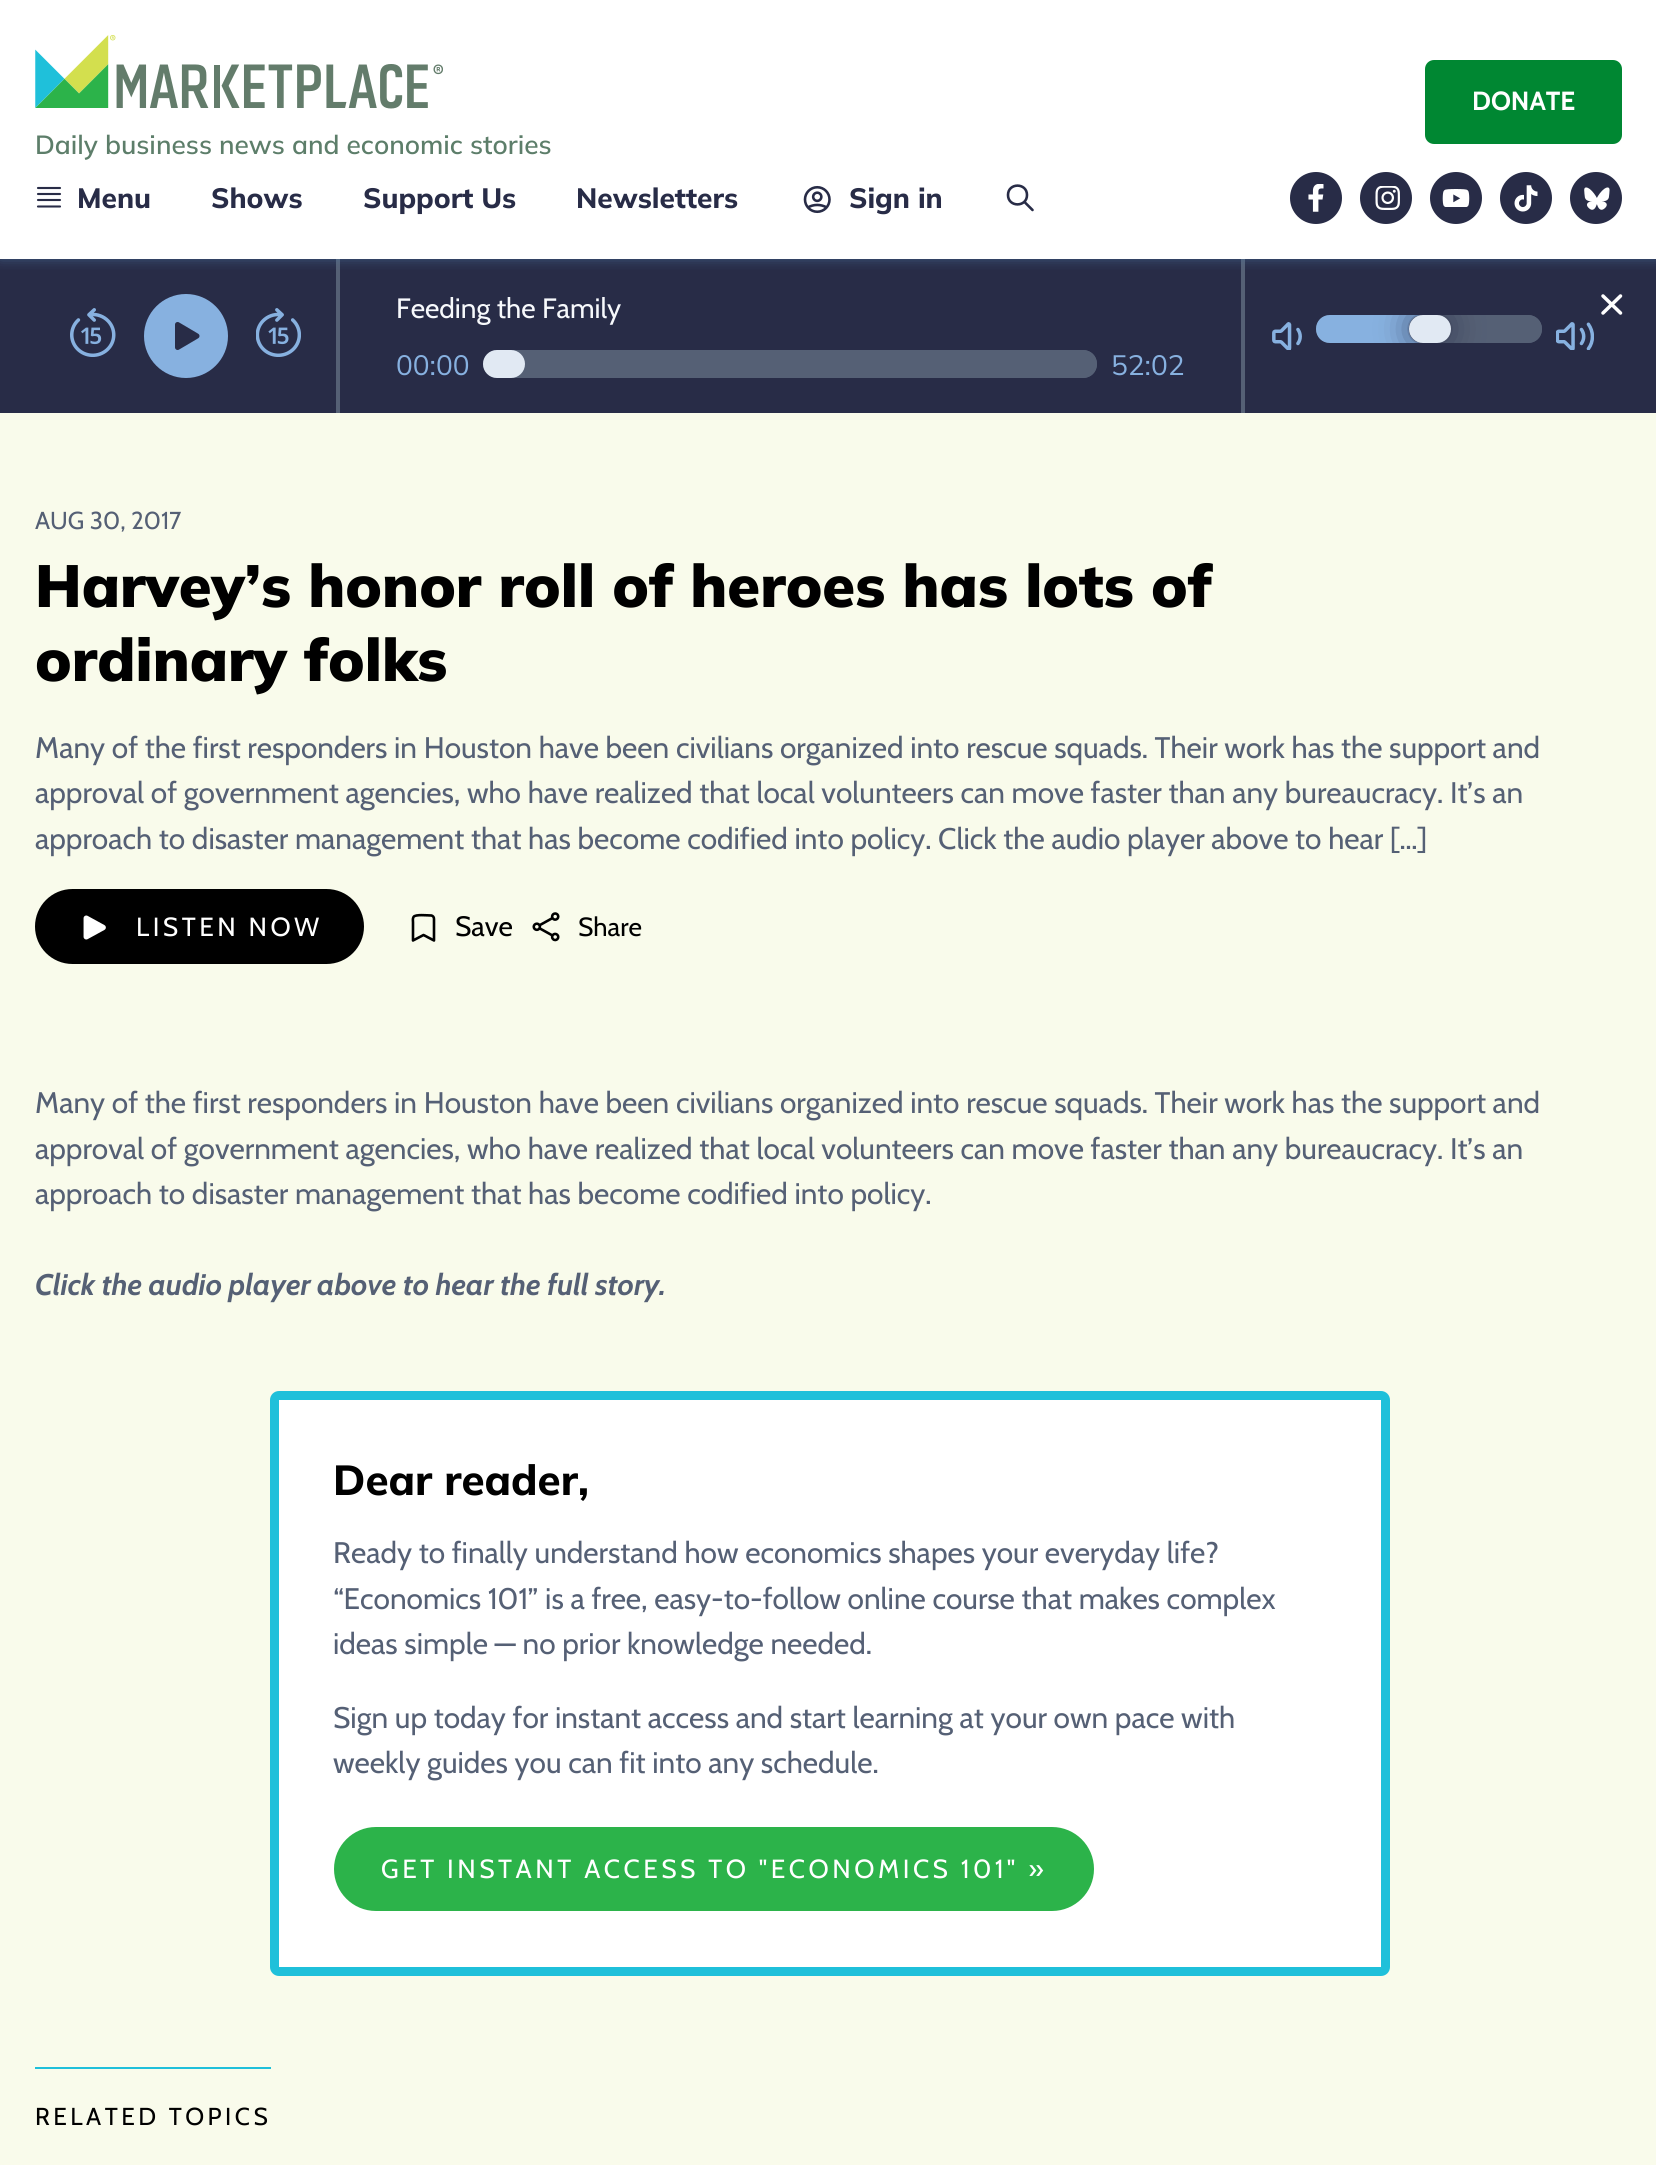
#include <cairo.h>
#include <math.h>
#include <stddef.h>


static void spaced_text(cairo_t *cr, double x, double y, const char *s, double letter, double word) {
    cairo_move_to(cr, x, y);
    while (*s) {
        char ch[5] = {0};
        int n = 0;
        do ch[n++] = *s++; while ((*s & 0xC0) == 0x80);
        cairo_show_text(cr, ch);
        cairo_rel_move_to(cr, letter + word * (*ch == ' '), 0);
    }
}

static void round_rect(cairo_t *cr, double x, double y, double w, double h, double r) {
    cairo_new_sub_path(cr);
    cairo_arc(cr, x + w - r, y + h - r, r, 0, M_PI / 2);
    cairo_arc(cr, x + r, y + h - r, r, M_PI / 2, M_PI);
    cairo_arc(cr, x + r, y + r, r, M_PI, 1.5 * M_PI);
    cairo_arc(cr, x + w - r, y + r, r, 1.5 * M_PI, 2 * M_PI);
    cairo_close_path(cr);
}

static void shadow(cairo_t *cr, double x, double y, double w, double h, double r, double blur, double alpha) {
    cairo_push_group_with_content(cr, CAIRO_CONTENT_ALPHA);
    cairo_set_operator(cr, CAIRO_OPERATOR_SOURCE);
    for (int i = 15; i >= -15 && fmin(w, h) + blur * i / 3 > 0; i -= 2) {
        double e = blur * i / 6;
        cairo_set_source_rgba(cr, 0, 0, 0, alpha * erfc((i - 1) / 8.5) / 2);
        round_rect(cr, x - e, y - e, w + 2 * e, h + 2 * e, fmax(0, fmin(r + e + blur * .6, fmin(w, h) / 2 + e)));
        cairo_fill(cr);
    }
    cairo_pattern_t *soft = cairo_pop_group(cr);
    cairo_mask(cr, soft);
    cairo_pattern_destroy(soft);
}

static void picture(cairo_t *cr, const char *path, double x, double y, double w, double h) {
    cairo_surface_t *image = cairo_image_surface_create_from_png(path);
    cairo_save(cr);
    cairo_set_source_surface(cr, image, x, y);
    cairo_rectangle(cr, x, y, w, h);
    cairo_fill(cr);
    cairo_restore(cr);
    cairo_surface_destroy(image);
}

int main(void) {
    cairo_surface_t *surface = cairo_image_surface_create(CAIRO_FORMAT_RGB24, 1656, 2165);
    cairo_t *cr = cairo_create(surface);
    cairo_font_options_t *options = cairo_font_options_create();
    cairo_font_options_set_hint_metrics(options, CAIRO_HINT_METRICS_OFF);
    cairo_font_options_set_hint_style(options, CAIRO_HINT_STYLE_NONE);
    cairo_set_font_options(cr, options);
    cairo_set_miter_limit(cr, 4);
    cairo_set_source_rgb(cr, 0.976, 0.984, 0.918);
    cairo_paint(cr);
    cairo_set_source_rgb(cr, 1, 1, 1);
    cairo_rectangle(cr, 0, 0, 1656, 259);
    cairo_fill(cr);
    cairo_set_source_rgb(cr, 0.157, 0.173, 0.278);
    cairo_rectangle(cr, 0, 259, 1656, 154);
    cairo_fill(cr);
    cairo_set_source_rgb(cr, 0.333, 0.376, 0.459);
    cairo_rectangle(cr, 336, 259, 4, 154);
    cairo_fill(cr);
    cairo_rectangle(cr, 1241, 259, 4, 154);
    cairo_fill(cr);
    cairo_save(cr);
    cairo_rectangle(cr, 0, 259, 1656, 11);
    cairo_clip(cr);
    cairo_set_source_rgb(cr, 0.286, 0.447, 0.631);
    shadow(cr, 0, -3, 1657, 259, 0, 7, 1);
    cairo_restore(cr);
    cairo_set_source_rgb(cr, 0, 0.529, 0.196);
    round_rect(cr, 1426, 61, 195, 82, 8);
    cairo_fill_preserve(cr);
    cairo_stroke(cr);
    cairo_select_font_face(cr, "Cabin", CAIRO_FONT_SLANT_NORMAL, CAIRO_FONT_WEIGHT_BOLD);
    cairo_set_font_size(cr, 26.25);
    cairo_set_source_rgb(cr, 1, 1, 1);
    cairo_move_to(cr, 1472, 110);
    cairo_show_text(cr, "DONATE");
    picture(cr, "img1.png", 35, 35, 408, 74);
    cairo_select_font_face(cr, "Mulish SemiBold", CAIRO_FONT_SLANT_NORMAL, CAIRO_FONT_WEIGHT_NORMAL);
    cairo_set_source_rgb(cr, 0.365, 0.494, 0.416);
    cairo_move_to(cr, 35, 154);
    cairo_show_text(cr, "Daily business news and economic stories");
    cairo_new_path(cr);
    cairo_move_to(cr, 38, 188);
    cairo_line_to(cr, 60, 188);
    cairo_move_to(cr, 38, 194);
    cairo_line_to(cr, 60, 194);
    cairo_move_to(cr, 38, 200);
    cairo_line_to(cr, 60, 200);
    cairo_move_to(cr, 38, 206.5);
    cairo_line_to(cr, 60, 206.5);
    cairo_set_source_rgb(cr, 0.157, 0.173, 0.278);
    cairo_set_line_width(cr, 2.1);
    cairo_set_line_cap(cr, CAIRO_LINE_CAP_ROUND);
    cairo_set_line_join(cr, CAIRO_LINE_JOIN_ROUND);
    cairo_stroke(cr);
    cairo_select_font_face(cr, "Mulish ExtraBold", CAIRO_FONT_SLANT_NORMAL, CAIRO_FONT_WEIGHT_NORMAL);
    cairo_set_font_size(cr, 28);
    cairo_move_to(cr, 77, 208);
    cairo_show_text(cr, "Menu");
    cairo_move_to(cr, 211, 208);
    cairo_show_text(cr, "Shows");
    cairo_move_to(cr, 363, 208);
    cairo_show_text(cr, "Support Us");
    cairo_move_to(cr, 576, 208);
    cairo_show_text(cr, "Newsletters");
    picture(cr, "img2.png", 803, 185, 28, 29);
    cairo_move_to(cr, 849, 208);
    cairo_show_text(cr, "Sign in");
    cairo_new_path(cr);
    cairo_move_to(cr, 1032.5, 210);
    cairo_line_to(cr, 1024.5, 202);
    cairo_move_to(cr, 1027, 195);
    cairo_curve_to(cr, 1027, 207.5, 1008, 207.5, 1008, 195);
    cairo_curve_to(cr, 1008, 182.5, 1027, 182.5, 1027, 195);
    cairo_close_path(cr);
    cairo_set_line_width(cr, 2.6);
    cairo_stroke(cr);
    cairo_arc(cr, 1316, 198, 26, 0, 2 * M_PI);
    cairo_fill(cr);
    picture(cr, "img3.png", 1308, 184, 16, 28);
    cairo_arc(cr, 1386, 198, 26, 0, 2 * M_PI);
    cairo_fill(cr);
    picture(cr, "img4.png", 1375, 186, 25, 24);
    cairo_arc(cr, 1456, 198, 26, 0, 2 * M_PI);
    cairo_fill(cr);
    picture(cr, "img5.png", 1442, 189, 28, 18);
    cairo_arc(cr, 1526, 198, 26, 0, 2 * M_PI);
    cairo_fill(cr);
    picture(cr, "img6.png", 1514, 185, 24, 27);
    cairo_arc(cr, 1596, 198, 26, 0, 2 * M_PI);
    cairo_fill(cr);
    picture(cr, "img7.png", 1584, 187, 26, 23);
    picture(cr, "img8.png", 70, 308, 46, 49);
    cairo_set_source_rgb(cr, 0.529, 0.694, 0.878);
    cairo_arc(cr, 186, 336, 42, 0, 2 * M_PI);
    cairo_fill(cr);
    picture(cr, "img9.png", 175, 322, 25, 28);
    picture(cr, "img10.png", 256, 308, 45, 49);
    cairo_select_font_face(cr, "Cabin", CAIRO_FONT_SLANT_NORMAL, CAIRO_FONT_WEIGHT_NORMAL);
    cairo_set_source_rgb(cr, 0.965, 0.976, 0.988);
    cairo_move_to(cr, 396, 318);
    cairo_show_text(cr, "Feeding the Family");
    picture(cr, "img11.png", 1272, 322, 30, 28);
    cairo_set_source_rgb(cr, 0.333, 0.376, 0.459);
    round_rect(cr, 1316, 315, 226, 28, 14);
    cairo_fill(cr);
    cairo_new_path(cr);
    cairo_move_to(cr, 1437, 343);
    cairo_line_to(cr, 1528, 343);
    cairo_curve_to(cr, 1536, 343, 1542, 337, 1542, 329);
    cairo_curve_to(cr, 1542, 321, 1536, 315, 1528, 315);
    cairo_line_to(cr, 1437, 315);
    cairo_curve_to(cr, 1455, 315, 1455, 343, 1437, 343);
    cairo_close_path(cr);
    cairo_fill(cr);
    cairo_set_source_rgb(cr, 0.529, 0.694, 0.878);
    cairo_new_path(cr);
    cairo_move_to(cr, 1330, 315);
    cairo_curve_to(cr, 1322, 315, 1316, 321, 1316, 329);
    cairo_curve_to(cr, 1316, 337, 1322, 343, 1330, 343);
    cairo_line_to(cr, 1423, 343);
    cairo_curve_to(cr, 1404, 343, 1404, 315, 1423, 315);
    cairo_close_path(cr);
    cairo_fill(cr);
    cairo_save(cr);
    round_rect(cr, 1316, 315, 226, 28, 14);
    cairo_clip(cr);
    cairo_set_source_rgb(cr, 0.157, 0.173, 0.278);
    shadow(cr, 1416, 322, 28, 14, 7, 17.5, 1);
    cairo_restore(cr);
    cairo_set_source_rgb(cr, 0.882, 0.914, 0.953);
    round_rect(cr, 1409, 315, 42, 28, 14);
    cairo_fill(cr);
    picture(cr, "img12.png", 1556, 322, 38, 28);
    cairo_select_font_face(cr, "Mulish", CAIRO_FONT_SLANT_NORMAL, CAIRO_FONT_WEIGHT_NORMAL);
    cairo_set_source_rgb(cr, 0.529, 0.694, 0.878);
    cairo_move_to(cr, 396, 375);
    cairo_show_text(cr, "00:00");
    cairo_set_source_rgb(cr, 0.333, 0.376, 0.459);
    round_rect(cr, 483, 350, 614, 28, 14);
    cairo_fill(cr);
    cairo_new_path(cr);
    cairo_move_to(cr, 511, 378);
    cairo_line_to(cr, 1083, 378);
    cairo_curve_to(cr, 1091, 378, 1097, 372, 1097, 364);
    cairo_curve_to(cr, 1097, 356, 1091, 350, 1083, 350);
    cairo_line_to(cr, 511, 350);
    cairo_curve_to(cr, 529, 350, 529, 378, 511, 378);
    cairo_close_path(cr);
    cairo_fill(cr);
    cairo_set_source_rgb(cr, 0.882, 0.914, 0.953);
    round_rect(cr, 483, 350, 42, 28, 14);
    cairo_fill(cr);
    cairo_set_source_rgb(cr, 0.529, 0.694, 0.878);
    cairo_move_to(cr, 1111, 375);
    cairo_show_text(cr, "52:02");
    cairo_new_path(cr);
    cairo_move_to(cr, 1603, 313);
    cairo_line_to(cr, 1620.5, 296);
    cairo_move_to(cr, 1603, 296);
    cairo_line_to(cr, 1620.5, 313);
    cairo_set_source_rgb(cr, 1, 1, 1);
    cairo_set_line_width(cr, 3.5);
    cairo_stroke(cr);
    cairo_select_font_face(cr, "Cabin", CAIRO_FONT_SLANT_NORMAL, CAIRO_FONT_WEIGHT_NORMAL);
    cairo_set_font_size(cr, 24.5);
    cairo_set_source_rgb(cr, 0.333, 0.376, 0.459);
    cairo_move_to(cr, 35, 529);
    cairo_show_text(cr, "AUG 30, 2017");
    cairo_select_font_face(cr, "Mulish Black", CAIRO_FONT_SLANT_NORMAL, CAIRO_FONT_WEIGHT_NORMAL);
    cairo_set_font_size(cr, 59.5);
    cairo_set_source_rgb(cr, 0, 0, 0);
    cairo_move_to(cr, 35, 607);
    cairo_show_text(cr, "Harvey’s honor roll of heroes has lots of");
    cairo_move_to(cr, 35, 681);
    cairo_show_text(cr, "ordinary folks");
    cairo_select_font_face(cr, "Cabin", CAIRO_FONT_SLANT_NORMAL, CAIRO_FONT_WEIGHT_NORMAL);
    cairo_set_font_size(cr, 29.75);
    cairo_set_source_rgb(cr, 0.333, 0.376, 0.459);
    cairo_move_to(cr, 35, 758);
    cairo_show_text(cr, "Many of the first responders in Houston have been civilians organized into rescue squads. Their work has the support and");
    cairo_move_to(cr, 35, 803);
    cairo_show_text(cr, "approval of government agencies, who have realized that local volunteers can move faster than any bureaucracy. It’s an");
    cairo_move_to(cr, 35, 849);
    cairo_show_text(cr, "approach to disaster management that has become codified into policy. Click the audio player above to hear […]");
    cairo_set_source_rgb(cr, 0, 0, 0);
    round_rect(cr, 36, 890, 327, 73, 36.5);
    cairo_fill_preserve(cr);
    cairo_set_line_width(cr, 2);
    cairo_set_line_cap(cr, CAIRO_LINE_CAP_BUTT);
    cairo_set_line_join(cr, CAIRO_LINE_JOIN_MITER);
    cairo_stroke(cr);
    picture(cr, "img13.png", 83, 915, 23, 25);
    cairo_set_font_size(cr, 26.25);
    cairo_set_source_rgb(cr, 1, 1, 1);
    spaced_text(cr, 136, 936, "LISTEN NOW", 3.5, 0);
    cairo_new_path(cr);
    cairo_move_to(cr, 431.5, 915.5);
    cairo_curve_to(cr, 433, 916, 434, 917, 434, 919);
    cairo_line_to(cr, 434, 940.5);
    cairo_line_to(cr, 423.5, 935);
    cairo_line_to(cr, 413, 940.5);
    cairo_line_to(cr, 413, 922.5);
    cairo_curve_to(cr, 413, 921, 412.5, 918.5, 413.5, 917);
    cairo_curve_to(cr, 415, 914, 428, 915.5, 431.5, 915.5);
    cairo_close_path(cr);
    cairo_set_source_rgb(cr, 0, 0, 0);
    cairo_set_line_width(cr, 2.6);
    cairo_set_line_cap(cr, CAIRO_LINE_CAP_ROUND);
    cairo_set_line_join(cr, CAIRO_LINE_JOIN_ROUND);
    cairo_stroke(cr);
    cairo_set_font_size(cr, 28);
    cairo_move_to(cr, 455, 936);
    cairo_show_text(cr, "Save");
    picture(cr, "img14.png", 532, 912, 28, 30);
    cairo_set_font_size(cr, 26.25);
    cairo_move_to(cr, 578, 936);
    cairo_show_text(cr, "Share");
    cairo_set_font_size(cr, 29.75);
    cairo_set_source_rgb(cr, 0.333, 0.376, 0.459);
    cairo_move_to(cr, 35, 1113);
    cairo_show_text(cr, "Many of the first responders in Houston have been civilians organized into rescue squads. Their work has the support and");
    cairo_move_to(cr, 35, 1159);
    cairo_show_text(cr, "approval of government agencies, who have realized that local volunteers can move faster than any bureaucracy. It’s an");
    cairo_move_to(cr, 35, 1204);
    cairo_show_text(cr, "approach to disaster management that has become codified into policy.");
    cairo_select_font_face(cr, "Cabin", CAIRO_FONT_SLANT_ITALIC, CAIRO_FONT_WEIGHT_BOLD);
    cairo_move_to(cr, 35, 1295);
    cairo_show_text(cr, "Click the audio player above to hear the full story.");
    cairo_set_source_rgb(cr, 1, 1, 1);
    round_rect(cr, 274.5, 1395.5, 1111, 576, 4.5);
    cairo_fill_preserve(cr);
    cairo_set_source_rgb(cr, 0.122, 0.753, 0.855);
    cairo_set_line_width(cr, 9);
    cairo_set_line_cap(cr, CAIRO_LINE_CAP_BUTT);
    cairo_set_line_join(cr, CAIRO_LINE_JOIN_MITER);
    cairo_stroke(cr);
    cairo_select_font_face(cr, "Mulish ExtraBold", CAIRO_FONT_SLANT_NORMAL, CAIRO_FONT_WEIGHT_NORMAL);
    cairo_set_font_size(cr, 42);
    cairo_set_source_rgb(cr, 0, 0, 0);
    cairo_move_to(cr, 333, 1495);
    cairo_show_text(cr, "Dear reader,");
    cairo_select_font_face(cr, "Cabin", CAIRO_FONT_SLANT_NORMAL, CAIRO_FONT_WEIGHT_NORMAL);
    cairo_set_font_size(cr, 29.75);
    cairo_set_source_rgb(cr, 0.333, 0.376, 0.459);
    cairo_move_to(cr, 333, 1563);
    cairo_show_text(cr, "Ready to finally understand how economics shapes your everyday life?");
    cairo_move_to(cr, 333, 1609);
    cairo_show_text(cr, "“Economics 101” is a free, easy-to-follow online course that makes complex");
    cairo_move_to(cr, 333, 1654);
    cairo_show_text(cr, "ideas simple — no prior knowledge needed.");
    cairo_move_to(cr, 333, 1728);
    cairo_show_text(cr, "Sign up today for instant access and start learning at your own pace with");
    cairo_move_to(cr, 333, 1773);
    cairo_show_text(cr, "weekly guides you can fit into any schedule.");
    cairo_set_source_rgb(cr, 0.173, 0.702, 0.29);
    round_rect(cr, 335, 1828, 758, 82, 41);
    cairo_fill_preserve(cr);
    cairo_set_line_width(cr, 2);
    cairo_stroke(cr);
    cairo_set_font_size(cr, 26.25);
    cairo_set_source_rgb(cr, 1, 1, 1);
    spaced_text(cr, 381, 1878, "GET INSTANT ACCESS TO \"ECONOMICS 101\" »", 3.5, 0);
    cairo_set_source_rgb(cr, 0.122, 0.753, 0.855);
    cairo_rectangle(cr, 35, 2067, 236, 2);
    cairo_fill(cr);
    cairo_set_font_size(cr, 24.5);
    cairo_set_source_rgb(cr, 0, 0, 0);
    spaced_text(cr, 35, 2125, "RELATED TOPICS", 3.5, 0);
    cairo_surface_write_to_png(surface, "page.png");
    cairo_font_options_destroy(options);
    cairo_destroy(cr);
    cairo_surface_destroy(surface);
    return 0;
}
